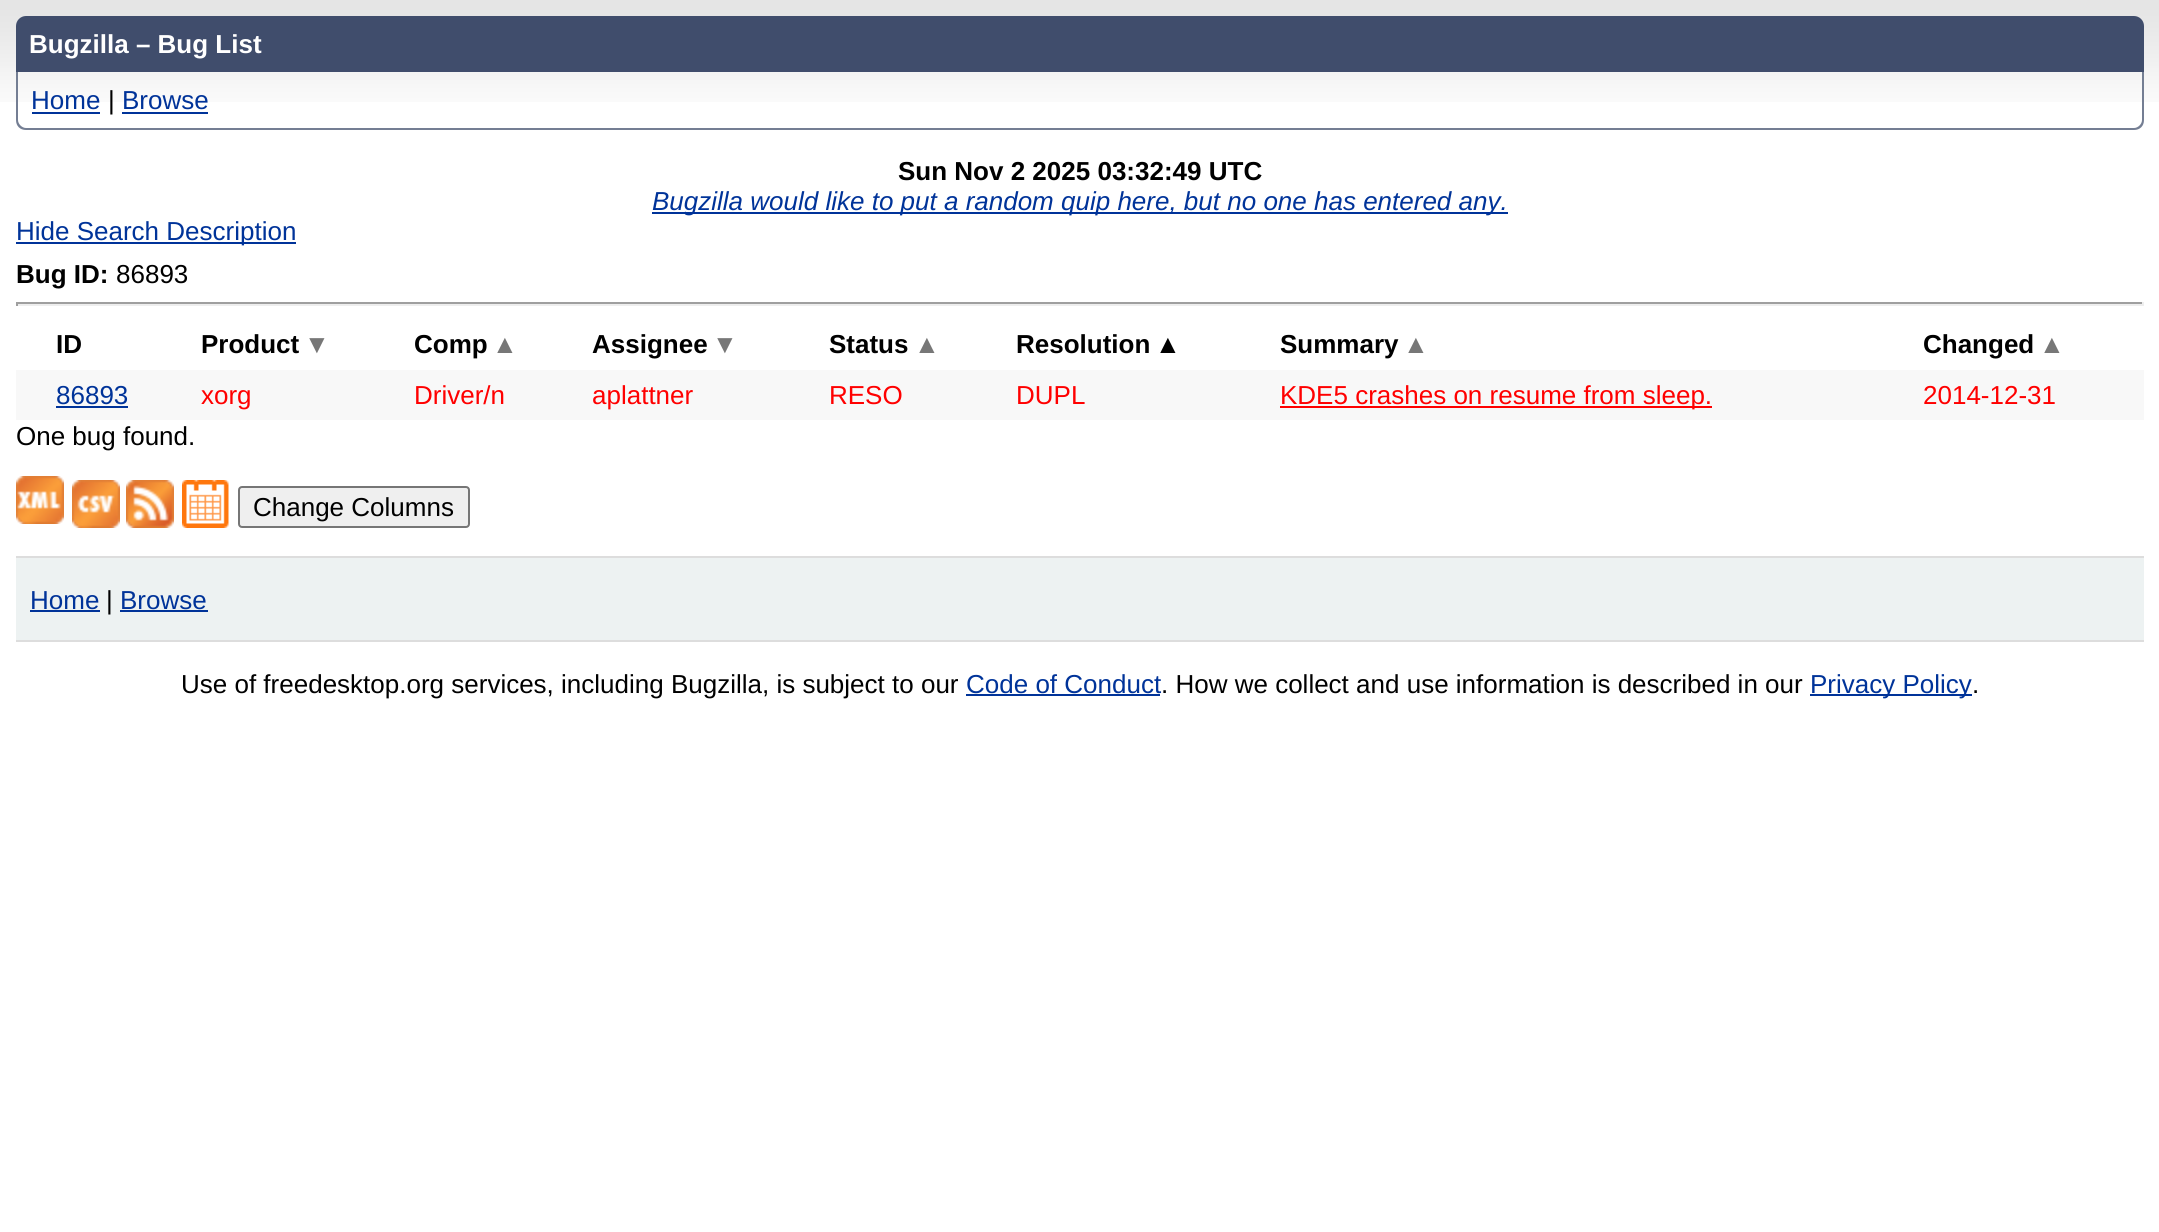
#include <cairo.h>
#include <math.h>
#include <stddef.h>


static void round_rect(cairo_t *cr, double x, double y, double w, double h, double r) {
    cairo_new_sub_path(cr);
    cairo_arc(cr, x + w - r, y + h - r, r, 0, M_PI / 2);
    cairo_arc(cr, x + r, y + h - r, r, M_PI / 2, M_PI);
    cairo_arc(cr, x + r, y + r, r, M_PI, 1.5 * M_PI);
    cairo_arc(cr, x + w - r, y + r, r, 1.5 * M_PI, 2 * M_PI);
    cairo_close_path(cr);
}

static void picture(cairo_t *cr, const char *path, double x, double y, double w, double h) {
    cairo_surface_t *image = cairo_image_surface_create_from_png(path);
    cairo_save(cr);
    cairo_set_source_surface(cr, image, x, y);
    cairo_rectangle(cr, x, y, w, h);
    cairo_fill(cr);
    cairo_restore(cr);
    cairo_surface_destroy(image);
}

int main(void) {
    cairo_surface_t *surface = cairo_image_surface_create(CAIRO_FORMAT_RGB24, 2159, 1232);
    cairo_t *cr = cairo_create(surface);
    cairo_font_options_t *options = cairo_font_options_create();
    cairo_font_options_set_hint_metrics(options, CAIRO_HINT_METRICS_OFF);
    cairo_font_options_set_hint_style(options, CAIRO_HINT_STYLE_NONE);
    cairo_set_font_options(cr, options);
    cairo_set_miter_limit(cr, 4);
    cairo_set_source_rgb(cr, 1, 1, 1);
    cairo_paint(cr);
    picture(cr, "img1.png", 0, 0, 2159, 102);
    cairo_set_source_rgb(cr, 0.251, 0.302, 0.424);
    cairo_new_path(cr);
    cairo_move_to(cr, 26, 16);
    cairo_line_to(cr, 2134, 16);
    cairo_curve_to(cr, 2139.5, 16, 2144, 20.5, 2144, 26);
    cairo_line_to(cr, 2144, 72);
    cairo_line_to(cr, 16, 72);
    cairo_line_to(cr, 16, 26);
    cairo_curve_to(cr, 16, 20.5, 20.5, 16, 26, 16);
    cairo_close_path(cr);
    cairo_fill(cr);
    cairo_select_font_face(cr, "Liberation Sans", CAIRO_FONT_SLANT_NORMAL, CAIRO_FONT_WEIGHT_BOLD);
    cairo_set_font_size(cr, 26);
    cairo_set_source_rgb(cr, 1, 1, 1);
    cairo_move_to(cr, 29, 53);
    cairo_show_text(cr, "Bugzilla – Bug List");
    cairo_set_source_rgb(cr, 0.455, 0.494, 0.576);
    cairo_set_fill_rule(cr, CAIRO_FILL_RULE_EVEN_ODD);
    cairo_new_path(cr);
    cairo_move_to(cr, 16, 72);
    cairo_line_to(cr, 2144, 72);
    cairo_line_to(cr, 2144, 120);
    cairo_curve_to(cr, 2144, 126, 2140, 130, 2134, 130);
    cairo_line_to(cr, 26, 130);
    cairo_curve_to(cr, 20, 130, 16, 126, 16, 120);
    cairo_close_path(cr);
    cairo_move_to(cr, 18, 72);
    cairo_line_to(cr, 2142, 72);
    cairo_line_to(cr, 2142, 120);
    cairo_curve_to(cr, 2142, 124, 2138, 128, 2134, 128);
    cairo_line_to(cr, 26, 128);
    cairo_curve_to(cr, 22, 128, 18, 124, 18, 120);
    cairo_close_path(cr);
    cairo_fill(cr);
    cairo_select_font_face(cr, "Liberation Sans", CAIRO_FONT_SLANT_NORMAL, CAIRO_FONT_WEIGHT_NORMAL);
    cairo_set_source_rgb(cr, 0, 0.2, 0.6);
    cairo_move_to(cr, 31, 109);
    cairo_show_text(cr, "Home");
    cairo_rectangle(cr, 32, 112, 68, 2);
    cairo_fill(cr);
    cairo_set_source_rgb(cr, 0, 0, 0);
    cairo_move_to(cr, 108, 109);
    cairo_show_text(cr, "|");
    cairo_set_source_rgb(cr, 0, 0.2, 0.6);
    cairo_move_to(cr, 122, 109);
    cairo_show_text(cr, "Browse");
    cairo_rectangle(cr, 122, 112, 86, 2);
    cairo_fill(cr);
    cairo_select_font_face(cr, "Liberation Sans", CAIRO_FONT_SLANT_NORMAL, CAIRO_FONT_WEIGHT_BOLD);
    cairo_set_source_rgb(cr, 0, 0, 0);
    cairo_move_to(cr, 898, 180);
    cairo_show_text(cr, "Sun Nov 2 2025 03:32:49 UTC");
    cairo_set_source_rgb(cr, 0, 0.2, 0.6);
    cairo_rectangle(cr, 652, 212, 856, 2);
    cairo_fill(cr);
    cairo_select_font_face(cr, "Liberation Sans", CAIRO_FONT_SLANT_ITALIC, CAIRO_FONT_WEIGHT_NORMAL);
    cairo_move_to(cr, 652, 210);
    cairo_show_text(cr, "Bugzilla would like to put a random quip here, but no one has entered any.");
    cairo_rectangle(cr, 16, 242, 280, 2);
    cairo_fill(cr);
    cairo_select_font_face(cr, "Liberation Sans", CAIRO_FONT_SLANT_NORMAL, CAIRO_FONT_WEIGHT_NORMAL);
    cairo_move_to(cr, 16, 240);
    cairo_show_text(cr, "Hide Search Description");
    cairo_select_font_face(cr, "Liberation Sans", CAIRO_FONT_SLANT_NORMAL, CAIRO_FONT_WEIGHT_BOLD);
    cairo_set_source_rgb(cr, 0, 0, 0);
    cairo_move_to(cr, 16, 283);
    cairo_show_text(cr, "Bug ID:");
    cairo_select_font_face(cr, "Liberation Sans", CAIRO_FONT_SLANT_NORMAL, CAIRO_FONT_WEIGHT_NORMAL);
    cairo_move_to(cr, 116, 283);
    cairo_show_text(cr, "86893");
    cairo_set_source_rgb(cr, 0.624, 0.624, 0.624);
    cairo_rectangle(cr, 16, 302, 2128, 2);
    cairo_fill(cr);
    cairo_set_source_rgb(cr, 0.933, 0.933, 0.933);
    cairo_rectangle(cr, 2142, 302, 2, 4);
    cairo_fill(cr);
    cairo_rectangle(cr, 16, 304, 2128, 2);
    cairo_fill(cr);
    cairo_set_source_rgb(cr, 0.624, 0.624, 0.624);
    cairo_rectangle(cr, 16, 302, 2, 4);
    cairo_fill(cr);
    cairo_select_font_face(cr, "Liberation Sans", CAIRO_FONT_SLANT_NORMAL, CAIRO_FONT_WEIGHT_BOLD);
    cairo_set_source_rgb(cr, 0, 0, 0);
    cairo_move_to(cr, 56, 353);
    cairo_show_text(cr, "ID");
    cairo_move_to(cr, 201, 353);
    cairo_show_text(cr, "Product");
    cairo_set_source_rgb(cr, 0.467, 0.467, 0.467);
    cairo_move_to(cr, 304, 353);
    cairo_show_text(cr, "▼");
    cairo_set_source_rgb(cr, 0, 0, 0);
    cairo_move_to(cr, 414, 353);
    cairo_show_text(cr, "Comp");
    cairo_set_source_rgb(cr, 0.467, 0.467, 0.467);
    cairo_move_to(cr, 492, 353);
    cairo_show_text(cr, "▲");
    cairo_set_source_rgb(cr, 0, 0, 0);
    cairo_move_to(cr, 592, 353);
    cairo_show_text(cr, "Assignee");
    cairo_set_source_rgb(cr, 0.467, 0.467, 0.467);
    cairo_move_to(cr, 712, 353);
    cairo_show_text(cr, "▼");
    cairo_set_source_rgb(cr, 0, 0, 0);
    cairo_move_to(cr, 829, 353);
    cairo_show_text(cr, "Status");
    cairo_set_source_rgb(cr, 0.467, 0.467, 0.467);
    cairo_move_to(cr, 914, 353);
    cairo_show_text(cr, "▲");
    cairo_set_source_rgb(cr, 0, 0, 0);
    cairo_move_to(cr, 1016, 353);
    cairo_show_text(cr, "Resolution");
    cairo_move_to(cr, 1155, 353);
    cairo_show_text(cr, "▲");
    cairo_move_to(cr, 1280, 353);
    cairo_show_text(cr, "Summary");
    cairo_set_source_rgb(cr, 0.467, 0.467, 0.467);
    cairo_move_to(cr, 1403, 353);
    cairo_show_text(cr, "▲");
    cairo_set_source_rgb(cr, 0, 0, 0);
    cairo_move_to(cr, 1923, 353);
    cairo_show_text(cr, "Changed");
    cairo_set_source_rgb(cr, 0.467, 0.467, 0.467);
    cairo_move_to(cr, 2039, 353);
    cairo_show_text(cr, "▲");
    cairo_set_source_rgb(cr, 0.969, 0.969, 0.969);
    cairo_rectangle(cr, 16, 370, 2128, 50);
    cairo_fill(cr);
    cairo_select_font_face(cr, "Liberation Sans", CAIRO_FONT_SLANT_NORMAL, CAIRO_FONT_WEIGHT_NORMAL);
    cairo_set_source_rgb(cr, 0, 0.2, 0.6);
    cairo_move_to(cr, 56, 404);
    cairo_show_text(cr, "86893");
    cairo_rectangle(cr, 56, 406, 72, 2);
    cairo_fill(cr);
    cairo_set_source_rgb(cr, 1, 0, 0);
    cairo_move_to(cr, 201, 404);
    cairo_show_text(cr, "xorg");
    cairo_move_to(cr, 414, 404);
    cairo_show_text(cr, "Driver/n");
    cairo_move_to(cr, 592, 404);
    cairo_show_text(cr, "aplattner");
    cairo_move_to(cr, 829, 404);
    cairo_show_text(cr, "RESO");
    cairo_move_to(cr, 1016, 404);
    cairo_show_text(cr, "DUPL");
    cairo_rectangle(cr, 1280, 406, 432, 2);
    cairo_fill(cr);
    cairo_move_to(cr, 1280, 404);
    cairo_show_text(cr, "KDE5 crashes on resume from sleep.");
    cairo_move_to(cr, 1923, 404);
    cairo_show_text(cr, "2014-12-31");
    cairo_set_source_rgb(cr, 0, 0, 0);
    cairo_move_to(cr, 16, 445);
    cairo_show_text(cr, "One bug found.");
    picture(cr, "img2.png", 16, 476, 48, 48);
    picture(cr, "img3.png", 72, 480, 48, 48);
    picture(cr, "img4.png", 126, 480, 48, 48);
    picture(cr, "img5.png", 182, 480, 47, 48);
    cairo_set_source_rgb(cr, 0.937, 0.937, 0.937);
    round_rect(cr, 239, 487, 230, 40, 3);
    cairo_fill_preserve(cr);
    cairo_set_source_rgb(cr, 0.463, 0.463, 0.463);
    cairo_stroke(cr);
    cairo_set_source_rgb(cr, 0, 0, 0);
    cairo_move_to(cr, 253, 516);
    cairo_show_text(cr, "Change Columns");
    cairo_set_source_rgb(cr, 0.929, 0.949, 0.949);
    cairo_rectangle(cr, 16, 558, 2128, 82);
    cairo_fill(cr);
    cairo_set_source_rgb(cr, 0.867, 0.867, 0.867);
    cairo_rectangle(cr, 16, 556, 2128, 2);
    cairo_fill(cr);
    cairo_rectangle(cr, 16, 640, 2128, 2);
    cairo_fill(cr);
    cairo_set_source_rgb(cr, 0, 0.2, 0.6);
    cairo_move_to(cr, 30, 609);
    cairo_show_text(cr, "Home");
    cairo_rectangle(cr, 30, 610, 70, 2);
    cairo_fill(cr);
    cairo_set_source_rgb(cr, 0, 0, 0);
    cairo_move_to(cr, 106, 609);
    cairo_show_text(cr, "|");
    cairo_set_source_rgb(cr, 0, 0.2, 0.6);
    cairo_move_to(cr, 120, 609);
    cairo_show_text(cr, "Browse");
    cairo_rectangle(cr, 120, 610, 88, 2);
    cairo_fill(cr);
    cairo_set_source_rgb(cr, 0, 0, 0);
    cairo_move_to(cr, 181, 693);
    cairo_show_text(cr, "Use of freedesktop.org services, including Bugzilla, is subject to our");
    cairo_set_source_rgb(cr, 0, 0.2, 0.6);
    cairo_move_to(cr, 966, 693);
    cairo_show_text(cr, "Code of Conduct");
    cairo_rectangle(cr, 966, 694, 194, 2);
    cairo_fill(cr);
    cairo_set_source_rgb(cr, 0, 0, 0);
    cairo_move_to(cr, 1161, 693);
    cairo_show_text(cr, ". How we collect and use information is described in our");
    cairo_set_source_rgb(cr, 0, 0.2, 0.6);
    cairo_rectangle(cr, 1810, 694, 162, 2);
    cairo_fill(cr);
    cairo_move_to(cr, 1810, 693);
    cairo_show_text(cr, "Privacy Policy");
    cairo_set_source_rgb(cr, 0, 0, 0);
    cairo_move_to(cr, 1972, 693);
    cairo_show_text(cr, ".");
    cairo_surface_write_to_png(surface, "page.png");
    cairo_font_options_destroy(options);
    cairo_destroy(cr);
    cairo_surface_destroy(surface);
    return 0;
}
